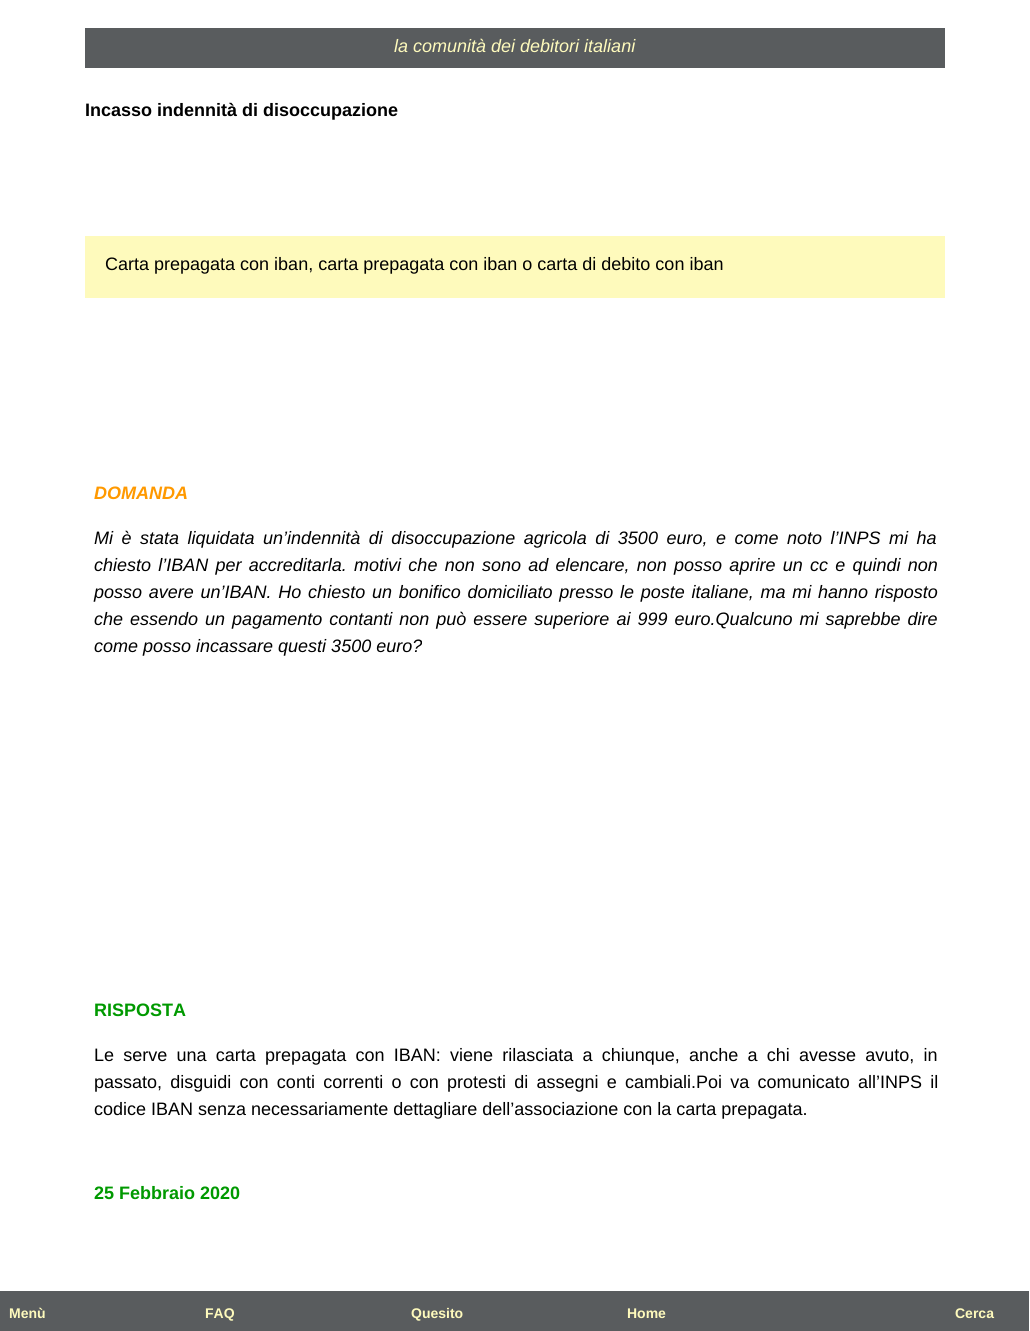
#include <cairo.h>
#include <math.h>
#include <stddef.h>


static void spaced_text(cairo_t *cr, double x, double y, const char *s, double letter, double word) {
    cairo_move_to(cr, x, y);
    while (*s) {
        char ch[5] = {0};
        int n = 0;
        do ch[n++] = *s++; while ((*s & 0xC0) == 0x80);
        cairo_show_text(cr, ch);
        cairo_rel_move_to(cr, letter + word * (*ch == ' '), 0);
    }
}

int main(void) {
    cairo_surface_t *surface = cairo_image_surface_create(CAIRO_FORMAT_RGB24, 1030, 1331);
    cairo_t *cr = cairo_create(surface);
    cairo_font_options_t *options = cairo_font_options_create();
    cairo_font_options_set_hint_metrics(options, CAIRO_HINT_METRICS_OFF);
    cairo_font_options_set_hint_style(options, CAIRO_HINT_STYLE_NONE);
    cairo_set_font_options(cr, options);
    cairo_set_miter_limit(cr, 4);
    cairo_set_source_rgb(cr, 1, 1, 1);
    cairo_paint(cr);
    cairo_set_source_rgb(cr, 0.349, 0.361, 0.369);
    cairo_rectangle(cr, 85, 28, 860, 40);
    cairo_fill(cr);
    cairo_select_font_face(cr, "Liberation Sans", CAIRO_FONT_SLANT_ITALIC, CAIRO_FONT_WEIGHT_NORMAL);
    cairo_set_font_size(cr, 18);
    cairo_set_source_rgb(cr, 0.996, 0.98, 0.737);
    cairo_move_to(cr, 394, 52);
    cairo_show_text(cr, "la comunità dei debitori italiani");
    cairo_set_source_rgb(cr, 0.349, 0.361, 0.369);
    cairo_rectangle(cr, 0, 1291, 1029, 40);
    cairo_fill(cr);
    cairo_select_font_face(cr, "Liberation Sans", CAIRO_FONT_SLANT_NORMAL, CAIRO_FONT_WEIGHT_BOLD);
    cairo_set_font_size(cr, 14);
    cairo_set_source_rgb(cr, 0.996, 0.98, 0.737);
    cairo_move_to(cr, 9, 1318);
    cairo_show_text(cr, "Menù");
    cairo_move_to(cr, 205, 1318);
    cairo_show_text(cr, "FAQ");
    cairo_move_to(cr, 411, 1318);
    cairo_show_text(cr, "Quesito");
    cairo_move_to(cr, 627, 1318);
    cairo_show_text(cr, "Home");
    cairo_move_to(cr, 955, 1318);
    cairo_show_text(cr, "Cerca");
    cairo_set_font_size(cr, 18);
    cairo_set_source_rgb(cr, 0, 0, 0);
    cairo_move_to(cr, 85, 116);
    cairo_show_text(cr, "Incasso indennità di disoccupazione");
    cairo_set_source_rgb(cr, 0.996, 0.98, 0.737);
    cairo_rectangle(cr, 85, 236, 860, 62);
    cairo_fill(cr);
    cairo_select_font_face(cr, "Liberation Sans", CAIRO_FONT_SLANT_NORMAL, CAIRO_FONT_WEIGHT_NORMAL);
    cairo_set_source_rgb(cr, 0, 0, 0);
    cairo_move_to(cr, 105, 270);
    cairo_show_text(cr, "Carta prepagata con iban, carta prepagata con iban o carta di debito con iban");
    cairo_select_font_face(cr, "Liberation Sans", CAIRO_FONT_SLANT_ITALIC, CAIRO_FONT_WEIGHT_BOLD);
    cairo_set_source_rgb(cr, 1, 0.6, 0);
    cairo_move_to(cr, 94, 499);
    cairo_show_text(cr, "DOMANDA");
    cairo_select_font_face(cr, "Liberation Sans", CAIRO_FONT_SLANT_ITALIC, CAIRO_FONT_WEIGHT_NORMAL);
    cairo_set_source_rgb(cr, 0, 0, 0);
    spaced_text(cr, 94, 544, "Mi è stata liquidata un’indennità di disoccupazione agricola di 3500 euro, e come noto l’INPS mi ha", 0, 3.5);
    spaced_text(cr, 94, 571, "chiesto l’IBAN per accreditarla. motivi che non sono ad elencare, non posso aprire un cc e quindi non", 0, 2.25);
    spaced_text(cr, 94, 598, "posso avere un’IBAN. Ho chiesto un bonifico domiciliato presso le poste italiane, ma mi hanno risposto", 0, 1.75);
    spaced_text(cr, 94, 625, "che essendo un pagamento contanti non può essere superiore ai 999 euro.Qualcuno mi saprebbe dire", 0, 2);
    cairo_move_to(cr, 94, 652);
    cairo_show_text(cr, "come posso incassare questi 3500 euro?");
    cairo_select_font_face(cr, "Liberation Sans", CAIRO_FONT_SLANT_NORMAL, CAIRO_FONT_WEIGHT_BOLD);
    cairo_set_source_rgb(cr, 0, 0.6, 0);
    cairo_move_to(cr, 94, 1016);
    cairo_show_text(cr, "RISPOSTA");
    cairo_select_font_face(cr, "Liberation Sans", CAIRO_FONT_SLANT_NORMAL, CAIRO_FONT_WEIGHT_NORMAL);
    cairo_set_source_rgb(cr, 0, 0, 0);
    spaced_text(cr, 94, 1061, "Le serve una carta prepagata con IBAN: viene rilasciata a chiunque, anche a chi avesse avuto, in", 0, 4.25);
    spaced_text(cr, 94, 1088, "passato, disguidi con conti correnti o con protesti di assegni e cambiali.Poi va comunicato all’INPS il", 0, 3.25);
    cairo_move_to(cr, 94, 1115);
    cairo_show_text(cr, "codice IBAN senza necessariamente dettagliare dell’associazione con la carta prepagata.");
    cairo_select_font_face(cr, "Liberation Sans", CAIRO_FONT_SLANT_NORMAL, CAIRO_FONT_WEIGHT_BOLD);
    cairo_set_source_rgb(cr, 0, 0.6, 0);
    cairo_move_to(cr, 94, 1199);
    cairo_show_text(cr, "25 Febbraio 2020");
    cairo_surface_write_to_png(surface, "page.png");
    cairo_font_options_destroy(options);
    cairo_destroy(cr);
    cairo_surface_destroy(surface);
    return 0;
}
